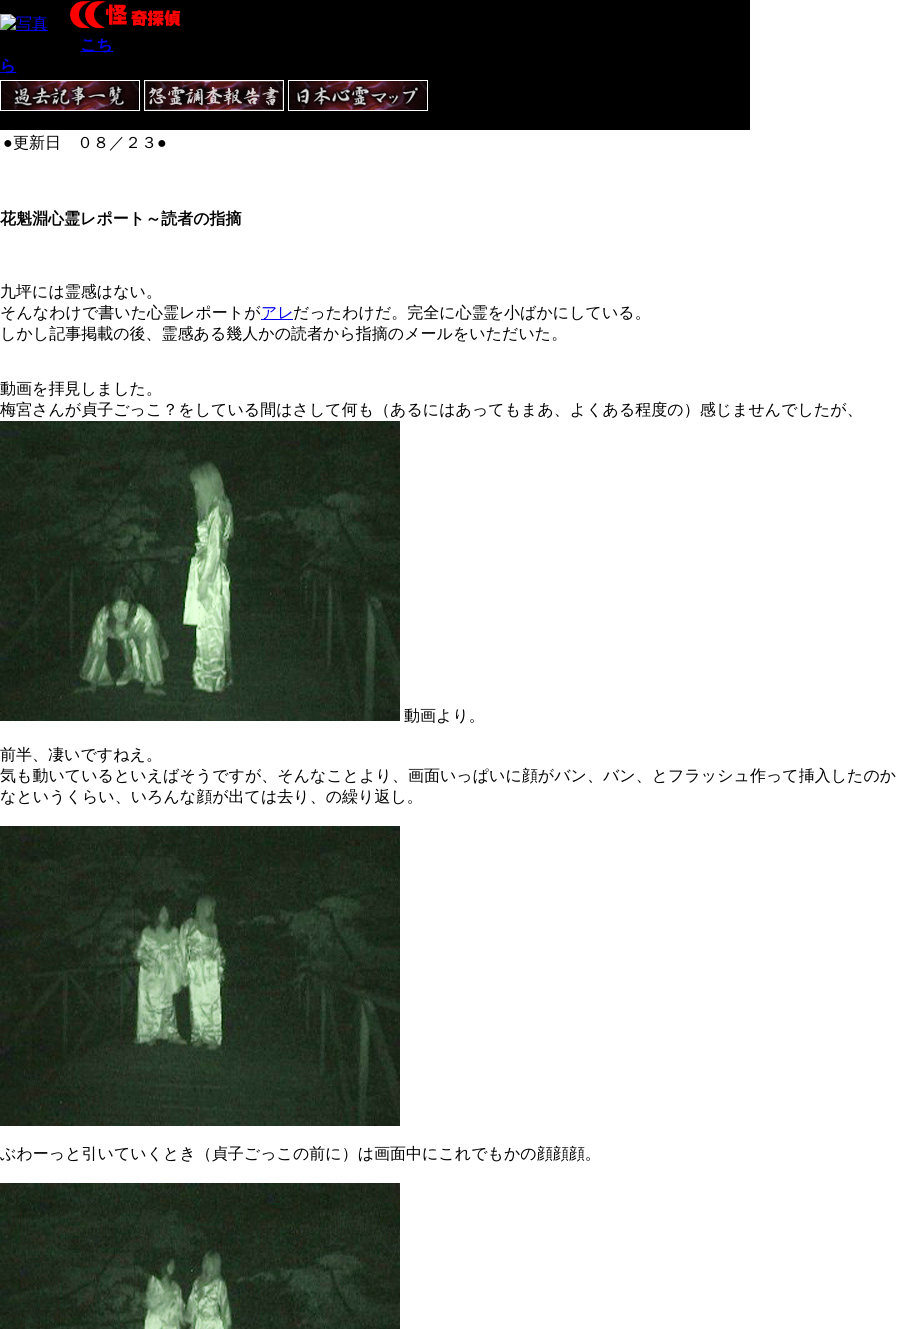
#include <cairo.h>
#include <math.h>
#include <stddef.h>


static void picture(cairo_t *cr, const char *path, double x, double y, double w, double h) {
    cairo_surface_t *image = cairo_image_surface_create_from_png(path);
    cairo_save(cr);
    cairo_set_source_surface(cr, image, x, y);
    cairo_rectangle(cr, x, y, w, h);
    cairo_fill(cr);
    cairo_restore(cr);
    cairo_surface_destroy(image);
}

int main(void) {
    cairo_surface_t *surface = cairo_image_surface_create(CAIRO_FORMAT_RGB24, 905, 1329);
    cairo_t *cr = cairo_create(surface);
    cairo_font_options_t *options = cairo_font_options_create();
    cairo_font_options_set_hint_metrics(options, CAIRO_HINT_METRICS_OFF);
    cairo_font_options_set_hint_style(options, CAIRO_HINT_STYLE_NONE);
    cairo_set_font_options(cr, options);
    cairo_set_miter_limit(cr, 4);
    cairo_set_source_rgb(cr, 1, 1, 1);
    cairo_paint(cr);
    picture(cr, "img1.png", 0, 0, 750, 130);
    cairo_select_font_face(cr, "Liberation Serif", CAIRO_FONT_SLANT_NORMAL, CAIRO_FONT_WEIGHT_NORMAL);
    cairo_set_font_size(cr, 16);
    cairo_set_source_rgb(cr, 0, 0, 0);
    cairo_move_to(cr, 3, 148);
    cairo_show_text(cr, "●");
    cairo_select_font_face(cr, "WenQuanYi Zen Hei Medium", CAIRO_FONT_SLANT_NORMAL, CAIRO_FONT_WEIGHT_NORMAL);
    cairo_move_to(cr, 13, 148);
    cairo_show_text(cr, "更新日　０８／２３");
    cairo_select_font_face(cr, "Liberation Serif", CAIRO_FONT_SLANT_NORMAL, CAIRO_FONT_WEIGHT_NORMAL);
    cairo_move_to(cr, 157, 148);
    cairo_show_text(cr, "●");
    cairo_select_font_face(cr, "WenQuanYi Zen Hei", CAIRO_FONT_SLANT_NORMAL, CAIRO_FONT_WEIGHT_BOLD);
    cairo_move_to(cr, 0, 224);
    cairo_show_text(cr, "花魁淵心霊レポート～読者の指摘");
    cairo_select_font_face(cr, "WenQuanYi Zen Hei Medium", CAIRO_FONT_SLANT_NORMAL, CAIRO_FONT_WEIGHT_NORMAL);
    cairo_move_to(cr, 0, 297);
    cairo_show_text(cr, "九坪には霊感はない。");
    cairo_move_to(cr, 0, 318);
    cairo_show_text(cr, "そんなわけで書いた心霊レポートが");
    cairo_set_source_rgb(cr, 0, 0, 0.933);
    cairo_rectangle(cr, 261, 319, 32, 1);
    cairo_fill(cr);
    cairo_move_to(cr, 261, 318);
    cairo_show_text(cr, "アレ");
    cairo_set_source_rgb(cr, 0, 0, 0);
    cairo_move_to(cr, 293, 318);
    cairo_show_text(cr, "だったわけだ。完全に心霊を小ばかにしている。");
    cairo_move_to(cr, 0, 339);
    cairo_show_text(cr, "しかし記事掲載の後、霊感ある幾人かの読者から指摘のメールをいただいた。");
    cairo_move_to(cr, 0, 394);
    cairo_show_text(cr, "動画を拝見しました。");
    cairo_move_to(cr, 0, 415);
    cairo_show_text(cr, "梅宮さんが貞子ごっこ？をしている間はさして何も（あるにはあってもまあ、よくある程度の）感じませんでしたが、");
    picture(cr, "img2.png", 0, 421, 400, 300);
    cairo_move_to(cr, 404, 721);
    cairo_show_text(cr, "動画より。");
    cairo_move_to(cr, 0, 760);
    cairo_show_text(cr, "前半、凄いですねえ。");
    cairo_move_to(cr, 0, 781);
    cairo_show_text(cr, "気も動いているといえばそうですが、そんなことより、画面いっぱいに顔がバン、バン、とフラッシュ作って挿入したのか");
    cairo_move_to(cr, 0, 802);
    cairo_show_text(cr, "なというくらい、いろんな顔が出ては去り、の繰り返し。");
    picture(cr, "img3.png", 0, 826, 400, 300);
    cairo_move_to(cr, 0, 1159);
    cairo_show_text(cr, "ぶわーっと引いていくとき（貞子ごっこの前に）は画面中にこれでもかの顔顔顔。");
    picture(cr, "img4.png", 0, 1183, 400, 146);
    cairo_surface_write_to_png(surface, "page.png");
    cairo_font_options_destroy(options);
    cairo_destroy(cr);
    cairo_surface_destroy(surface);
    return 0;
}
